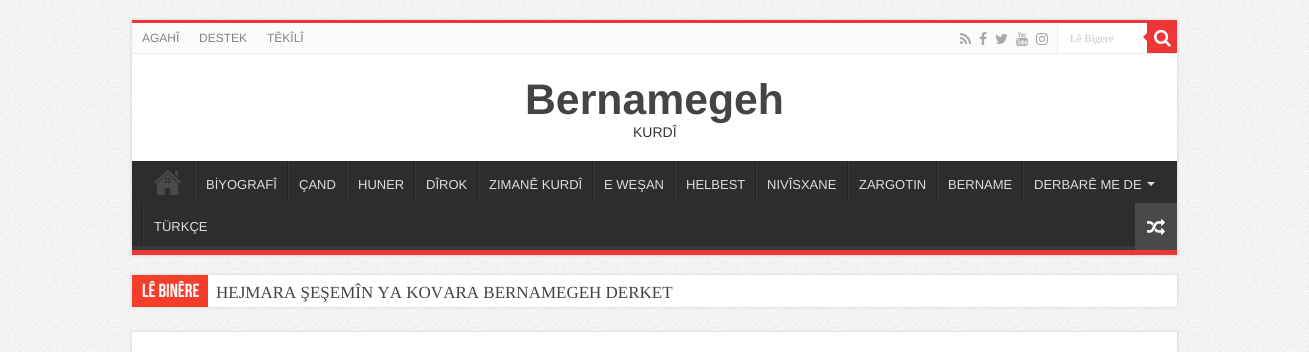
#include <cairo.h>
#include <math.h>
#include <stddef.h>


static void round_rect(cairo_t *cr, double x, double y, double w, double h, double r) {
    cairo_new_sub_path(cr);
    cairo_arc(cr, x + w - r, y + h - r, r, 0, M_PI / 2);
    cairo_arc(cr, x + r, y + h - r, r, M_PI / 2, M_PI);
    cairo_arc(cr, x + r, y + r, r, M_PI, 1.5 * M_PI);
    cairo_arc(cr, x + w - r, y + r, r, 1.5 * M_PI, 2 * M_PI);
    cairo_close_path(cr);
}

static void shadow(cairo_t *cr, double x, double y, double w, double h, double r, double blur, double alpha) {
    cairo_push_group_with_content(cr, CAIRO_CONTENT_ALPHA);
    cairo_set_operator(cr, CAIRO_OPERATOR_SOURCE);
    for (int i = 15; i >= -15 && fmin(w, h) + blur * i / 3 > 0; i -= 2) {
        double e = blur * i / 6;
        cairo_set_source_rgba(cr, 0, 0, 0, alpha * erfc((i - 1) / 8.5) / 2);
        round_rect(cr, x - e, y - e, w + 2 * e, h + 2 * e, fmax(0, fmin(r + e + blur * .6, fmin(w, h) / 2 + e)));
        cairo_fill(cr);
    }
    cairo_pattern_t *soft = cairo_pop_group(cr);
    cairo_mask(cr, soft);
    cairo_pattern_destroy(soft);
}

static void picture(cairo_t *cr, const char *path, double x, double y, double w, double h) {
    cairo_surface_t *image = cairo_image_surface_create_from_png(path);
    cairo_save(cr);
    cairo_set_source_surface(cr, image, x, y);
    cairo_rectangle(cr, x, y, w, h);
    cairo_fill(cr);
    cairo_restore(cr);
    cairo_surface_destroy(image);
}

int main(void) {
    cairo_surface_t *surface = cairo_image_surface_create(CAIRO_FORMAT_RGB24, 1309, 352);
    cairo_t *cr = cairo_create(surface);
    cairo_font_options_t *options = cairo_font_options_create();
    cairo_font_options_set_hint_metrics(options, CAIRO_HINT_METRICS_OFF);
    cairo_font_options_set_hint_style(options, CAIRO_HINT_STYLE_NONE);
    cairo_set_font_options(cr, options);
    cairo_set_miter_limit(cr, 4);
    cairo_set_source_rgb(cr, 1, 1, 1);
    cairo_paint(cr);
    picture(cr, "img1.png", 0, 0, 1309, 352);
    cairo_set_source_rgb(cr, 0.792, 0.792, 0.792);
    shadow(cr, 132, 20, 1045, 235, 0, 1.5, 1);
    cairo_set_source_rgb(cr, 1, 1, 1);
    cairo_rectangle(cr, 132, 54, 1045, 107);
    cairo_fill(cr);
    cairo_set_source_rgb(cr, 0.937, 0.212, 0.212);
    cairo_rectangle(cr, 132, 20, 1045, 3);
    cairo_fill(cr);
    cairo_set_source_rgb(cr, 0.984, 0.984, 0.984);
    cairo_rectangle(cr, 132, 23, 1015, 30);
    cairo_fill(cr);
    cairo_set_source_rgb(cr, 0.925, 0.925, 0.925);
    cairo_rectangle(cr, 132, 53, 1045, 1);
    cairo_fill(cr);
    cairo_select_font_face(cr, "Liberation Sans", CAIRO_FONT_SLANT_NORMAL, CAIRO_FONT_WEIGHT_NORMAL);
    cairo_set_font_size(cr, 12);
    cairo_set_source_rgb(cr, 0.514, 0.514, 0.514);
    cairo_move_to(cr, 142, 42);
    cairo_show_text(cr, "AGAHÎ");
    cairo_move_to(cr, 199, 42);
    cairo_show_text(cr, "DESTEK");
    cairo_move_to(cr, 267, 42);
    cairo_show_text(cr, "TÊKÎLÎ");
    picture(cr, "img2.png", 960, 33, 11, 11);
    picture(cr, "img3.png", 979, 32, 8, 13);
    picture(cr, "img4.png", 995, 34, 13, 10);
    picture(cr, "img5.png", 1016, 32, 12, 14);
    picture(cr, "img6.png", 1036, 33, 12, 12);
    cairo_set_source_rgb(cr, 1, 1, 1);
    cairo_rectangle(cr, 1058, 23, 89, 29);
    cairo_fill(cr);
    cairo_set_source_rgb(cr, 0.925, 0.925, 0.925);
    cairo_rectangle(cr, 1057, 23, 1, 29);
    cairo_fill(cr);
    cairo_save(cr);
    cairo_rectangle(cr, 1070, 32, 65, 12);
    cairo_clip(cr);
    cairo_select_font_face(cr, "Liberation Serif", CAIRO_FONT_SLANT_NORMAL, CAIRO_FONT_WEIGHT_NORMAL);
    cairo_set_font_size(cr, 11);
    cairo_set_source_rgb(cr, 0.773, 0.773, 0.773);
    cairo_move_to(cr, 1070, 42);
    cairo_show_text(cr, "Lê Bigere");
    cairo_restore(cr);
    cairo_set_source_rgb(cr, 0.937, 0.212, 0.212);
    cairo_rectangle(cr, 1147, 23, 30, 30);
    cairo_fill(cr);
    picture(cr, "img7.png", 1154, 29, 17, 18);
    cairo_new_path(cr);
    cairo_move_to(cr, 1147, 33);
    cairo_line_to(cr, 1147, 41);
    cairo_line_to(cr, 1143, 37);
    cairo_close_path(cr);
    cairo_fill(cr);
    cairo_select_font_face(cr, "Liberation Sans", CAIRO_FONT_SLANT_NORMAL, CAIRO_FONT_WEIGHT_BOLD);
    cairo_set_font_size(cr, 42.75);
    cairo_set_source_rgb(cr, 0.267, 0.267, 0.267);
    cairo_move_to(cr, 525, 114);
    cairo_show_text(cr, "Bernamegeh");
    cairo_select_font_face(cr, "Liberation Sans", CAIRO_FONT_SLANT_NORMAL, CAIRO_FONT_WEIGHT_NORMAL);
    cairo_set_font_size(cr, 14);
    cairo_set_source_rgb(cr, 0.2, 0.2, 0.2);
    cairo_move_to(cr, 633, 137);
    cairo_show_text(cr, "KURDÎ");
    cairo_set_source_rgb(cr, 0.176, 0.176, 0.176);
    cairo_rectangle(cr, 132, 161, 1045, 85);
    cairo_fill(cr);
    cairo_save(cr);
    cairo_rectangle(cr, 132, 161, 1045, 89);
    cairo_clip(cr);
    cairo_set_source_rgb(cr, 0.224, 0.224, 0.224);
    cairo_set_fill_rule(cr, CAIRO_FILL_RULE_EVEN_ODD);
    cairo_new_path(cr);
    cairo_move_to(cr, 33, 62);
    cairo_line_to(cr, 1276, 62);
    cairo_line_to(cr, 1276, 349);
    cairo_line_to(cr, 33, 349);
    cairo_close_path(cr);
    cairo_move_to(cr, 131, 155);
    cairo_line_to(cr, 1176, 155);
    cairo_curve_to(cr, 1177, 155, 1177, 155, 1177, 156);
    cairo_line_to(cr, 1177, 245);
    cairo_curve_to(cr, 1177, 246, 1177, 246, 1176, 246);
    cairo_line_to(cr, 131, 246);
    cairo_curve_to(cr, 130, 246, 130, 246, 130, 245);
    cairo_line_to(cr, 130, 156);
    cairo_curve_to(cr, 130, 155, 130, 155, 131, 155);
    cairo_close_path(cr);
    cairo_fill(cr);
    cairo_restore(cr);
    cairo_set_source_rgb(cr, 0.937, 0.212, 0.212);
    cairo_rectangle(cr, 132, 250, 1045, 5);
    cairo_fill(cr);
    picture(cr, "img8.png", 153, 170, 29, 25);
    cairo_set_source_rgb(cr, 0.133, 0.133, 0.133);
    cairo_rectangle(cr, 194, 161, 1, 42);
    cairo_fill(cr);
    cairo_set_source_rgb(cr, 0.22, 0.22, 0.22);
    cairo_rectangle(cr, 195, 161, 1, 42);
    cairo_fill(cr);
    cairo_set_font_size(cr, 13);
    cairo_set_source_rgb(cr, 0.867, 0.867, 0.867);
    cairo_move_to(cr, 206, 189);
    cairo_show_text(cr, "BİYOGRAFÎ");
    cairo_set_source_rgb(cr, 0.133, 0.133, 0.133);
    cairo_rectangle(cr, 287, 161, 1, 42);
    cairo_fill(cr);
    cairo_set_source_rgb(cr, 0.22, 0.22, 0.22);
    cairo_rectangle(cr, 288, 161, 1, 42);
    cairo_fill(cr);
    cairo_set_source_rgb(cr, 0.867, 0.867, 0.867);
    cairo_move_to(cr, 299, 189);
    cairo_show_text(cr, "ÇAND");
    cairo_set_source_rgb(cr, 0.133, 0.133, 0.133);
    cairo_rectangle(cr, 346, 161, 1, 42);
    cairo_fill(cr);
    cairo_set_source_rgb(cr, 0.22, 0.22, 0.22);
    cairo_rectangle(cr, 347, 161, 1, 42);
    cairo_fill(cr);
    cairo_set_source_rgb(cr, 0.867, 0.867, 0.867);
    cairo_move_to(cr, 358, 189);
    cairo_show_text(cr, "HUNER");
    cairo_set_source_rgb(cr, 0.133, 0.133, 0.133);
    cairo_rectangle(cr, 414, 161, 1, 42);
    cairo_fill(cr);
    cairo_set_source_rgb(cr, 0.22, 0.22, 0.22);
    cairo_rectangle(cr, 415, 161, 1, 42);
    cairo_fill(cr);
    cairo_set_source_rgb(cr, 0.867, 0.867, 0.867);
    cairo_move_to(cr, 426, 189);
    cairo_show_text(cr, "DÎROK");
    cairo_set_source_rgb(cr, 0.133, 0.133, 0.133);
    cairo_rectangle(cr, 477, 161, 1, 42);
    cairo_fill(cr);
    cairo_set_source_rgb(cr, 0.22, 0.22, 0.22);
    cairo_rectangle(cr, 478, 161, 1, 42);
    cairo_fill(cr);
    cairo_set_source_rgb(cr, 0.867, 0.867, 0.867);
    cairo_move_to(cr, 489, 189);
    cairo_show_text(cr, "ZIMANÊ KURDÎ");
    cairo_set_source_rgb(cr, 0.133, 0.133, 0.133);
    cairo_rectangle(cr, 592, 161, 1, 42);
    cairo_fill(cr);
    cairo_set_source_rgb(cr, 0.22, 0.22, 0.22);
    cairo_rectangle(cr, 593, 161, 1, 42);
    cairo_fill(cr);
    cairo_set_source_rgb(cr, 0.867, 0.867, 0.867);
    cairo_move_to(cr, 604, 189);
    cairo_show_text(cr, "E WEŞAN");
    cairo_set_source_rgb(cr, 0.133, 0.133, 0.133);
    cairo_rectangle(cr, 674, 161, 1, 42);
    cairo_fill(cr);
    cairo_set_source_rgb(cr, 0.22, 0.22, 0.22);
    cairo_rectangle(cr, 675, 161, 1, 42);
    cairo_fill(cr);
    cairo_set_source_rgb(cr, 0.867, 0.867, 0.867);
    cairo_move_to(cr, 686, 189);
    cairo_show_text(cr, "HELBEST");
    cairo_set_source_rgb(cr, 0.133, 0.133, 0.133);
    cairo_rectangle(cr, 755, 161, 1, 42);
    cairo_fill(cr);
    cairo_set_source_rgb(cr, 0.22, 0.22, 0.22);
    cairo_rectangle(cr, 756, 161, 1, 42);
    cairo_fill(cr);
    cairo_set_source_rgb(cr, 0.867, 0.867, 0.867);
    cairo_move_to(cr, 767, 189);
    cairo_show_text(cr, "NIVÎSXANE");
    cairo_set_source_rgb(cr, 0.133, 0.133, 0.133);
    cairo_rectangle(cr, 847, 161, 1, 42);
    cairo_fill(cr);
    cairo_set_source_rgb(cr, 0.22, 0.22, 0.22);
    cairo_rectangle(cr, 848, 161, 1, 42);
    cairo_fill(cr);
    cairo_set_source_rgb(cr, 0.867, 0.867, 0.867);
    cairo_move_to(cr, 859, 189);
    cairo_show_text(cr, "ZARGOTIN");
    cairo_set_source_rgb(cr, 0.133, 0.133, 0.133);
    cairo_rectangle(cr, 936, 161, 1, 42);
    cairo_fill(cr);
    cairo_set_source_rgb(cr, 0.22, 0.22, 0.22);
    cairo_rectangle(cr, 937, 161, 1, 42);
    cairo_fill(cr);
    cairo_set_source_rgb(cr, 0.867, 0.867, 0.867);
    cairo_move_to(cr, 948, 189);
    cairo_show_text(cr, "BERNAME");
    cairo_set_source_rgb(cr, 0.133, 0.133, 0.133);
    cairo_rectangle(cr, 1022, 161, 1, 42);
    cairo_fill(cr);
    cairo_set_source_rgb(cr, 0.22, 0.22, 0.22);
    cairo_rectangle(cr, 1023, 161, 1, 42);
    cairo_fill(cr);
    cairo_set_source_rgb(cr, 0.867, 0.867, 0.867);
    cairo_move_to(cr, 1034, 189);
    cairo_show_text(cr, "DERBARÊ ME DE");
    cairo_new_path(cr);
    cairo_move_to(cr, 1147, 182);
    cairo_line_to(cr, 1155, 182);
    cairo_line_to(cr, 1151, 186);
    cairo_close_path(cr);
    cairo_fill(cr);
    cairo_set_source_rgb(cr, 0.133, 0.133, 0.133);
    cairo_rectangle(cr, 142, 203, 1, 42);
    cairo_fill(cr);
    cairo_set_source_rgb(cr, 0.22, 0.22, 0.22);
    cairo_rectangle(cr, 143, 203, 1, 42);
    cairo_fill(cr);
    cairo_set_source_rgb(cr, 0.867, 0.867, 0.867);
    cairo_move_to(cr, 154, 231);
    cairo_show_text(cr, "TÜRKÇE");
    cairo_set_source_rgb(cr, 0.286, 0.286, 0.286);
    cairo_rectangle(cr, 1135, 203, 42, 47);
    cairo_fill(cr);
    picture(cr, "img9.png", 1147, 218, 18, 17);
    cairo_set_source_rgb(cr, 0.792, 0.792, 0.792);
    shadow(cr, 132, 275, 1045, 32, 0, 1.5, 1);
    cairo_set_source_rgb(cr, 1, 1, 1);
    cairo_rectangle(cr, 208, 275, 969, 32);
    cairo_fill(cr);
    cairo_set_source_rgb(cr, 0.957, 0.239, 0.165);
    cairo_rectangle(cr, 132, 275, 76, 32);
    cairo_fill(cr);
    cairo_select_font_face(cr, "Bebas Neue", CAIRO_FONT_SLANT_NORMAL, CAIRO_FONT_WEIGHT_BOLD);
    cairo_set_font_size(cr, 19);
    cairo_set_source_rgb(cr, 1, 1, 1);
    cairo_move_to(cr, 142, 297);
    cairo_show_text(cr, "LÊ BINÊRE");
    cairo_select_font_face(cr, "Liberation Serif", CAIRO_FONT_SLANT_NORMAL, CAIRO_FONT_WEIGHT_NORMAL);
    cairo_set_font_size(cr, 17);
    cairo_set_source_rgb(cr, 0.267, 0.267, 0.267);
    cairo_move_to(cr, 216, 298);
    cairo_show_text(cr, "HEJMARA ŞEŞEMÎN YA KOVARA BERNAMEGEH DERKET");
    cairo_set_source_rgb(cr, 0.792, 0.792, 0.792);
    shadow(cr, 132, 332, 1045, 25, 0, 1.5, 1);
    cairo_set_source_rgb(cr, 1, 1, 1);
    cairo_rectangle(cr, 132, 332, 1045, 20);
    cairo_fill(cr);
    cairo_surface_write_to_png(surface, "page.png");
    cairo_font_options_destroy(options);
    cairo_destroy(cr);
    cairo_surface_destroy(surface);
    return 0;
}
